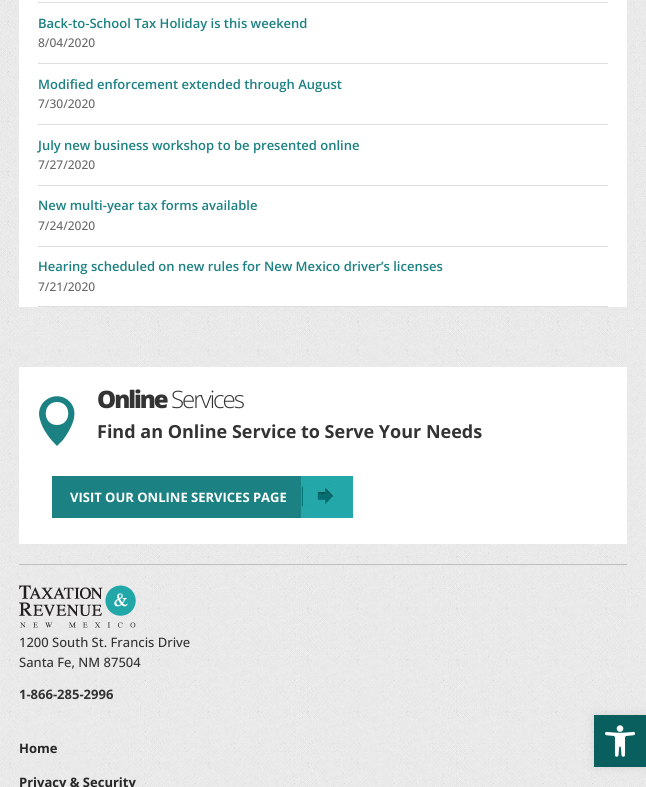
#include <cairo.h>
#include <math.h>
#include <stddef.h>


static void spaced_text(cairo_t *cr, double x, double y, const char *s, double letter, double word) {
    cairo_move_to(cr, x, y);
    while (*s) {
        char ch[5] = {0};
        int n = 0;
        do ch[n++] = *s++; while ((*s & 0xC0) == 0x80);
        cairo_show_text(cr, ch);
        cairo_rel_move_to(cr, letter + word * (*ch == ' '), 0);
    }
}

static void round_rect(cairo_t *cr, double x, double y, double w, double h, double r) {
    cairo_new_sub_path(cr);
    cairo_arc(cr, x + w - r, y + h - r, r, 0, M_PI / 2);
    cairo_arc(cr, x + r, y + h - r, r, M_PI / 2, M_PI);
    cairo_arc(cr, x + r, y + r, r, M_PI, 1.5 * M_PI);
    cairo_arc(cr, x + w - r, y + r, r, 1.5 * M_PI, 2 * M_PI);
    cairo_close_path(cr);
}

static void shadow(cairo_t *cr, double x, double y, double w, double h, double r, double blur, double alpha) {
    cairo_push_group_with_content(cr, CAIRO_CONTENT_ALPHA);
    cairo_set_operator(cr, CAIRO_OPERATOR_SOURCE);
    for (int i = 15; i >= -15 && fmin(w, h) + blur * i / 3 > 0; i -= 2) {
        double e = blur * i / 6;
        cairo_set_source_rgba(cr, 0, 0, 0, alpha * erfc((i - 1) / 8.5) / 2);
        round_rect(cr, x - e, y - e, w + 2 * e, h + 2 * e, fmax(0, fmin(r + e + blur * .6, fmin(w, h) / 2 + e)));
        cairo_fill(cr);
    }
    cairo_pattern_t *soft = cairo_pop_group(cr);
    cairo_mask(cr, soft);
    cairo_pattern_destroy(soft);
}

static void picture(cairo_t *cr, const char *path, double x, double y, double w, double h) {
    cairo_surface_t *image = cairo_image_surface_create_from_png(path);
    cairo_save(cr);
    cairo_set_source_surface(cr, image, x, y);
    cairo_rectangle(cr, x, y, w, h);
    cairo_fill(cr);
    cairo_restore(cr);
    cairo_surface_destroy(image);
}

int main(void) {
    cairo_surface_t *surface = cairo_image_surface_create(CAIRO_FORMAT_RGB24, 646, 787);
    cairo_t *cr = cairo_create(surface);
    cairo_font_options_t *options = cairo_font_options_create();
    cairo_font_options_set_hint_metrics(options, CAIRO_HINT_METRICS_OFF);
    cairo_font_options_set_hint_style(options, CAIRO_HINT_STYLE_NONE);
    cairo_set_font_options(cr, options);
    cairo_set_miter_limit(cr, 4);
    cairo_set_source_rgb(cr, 1, 1, 1);
    cairo_paint(cr);
    picture(cr, "img1.png", 0, 0, 646, 327);
    cairo_set_source_rgb(cr, 1, 1, 1);
    cairo_rectangle(cr, 19, 0, 608, 307);
    cairo_fill(cr);
    cairo_set_source_rgb(cr, 0.871, 0.871, 0.871);
    cairo_rectangle(cr, 38, 2, 570, 1);
    cairo_fill(cr);
    cairo_rectangle(cr, 38, 63, 570, 1);
    cairo_fill(cr);
    cairo_select_font_face(cr, "Open Sans SemiBold", CAIRO_FONT_SLANT_NORMAL, CAIRO_FONT_WEIGHT_NORMAL);
    cairo_set_font_size(cr, 13);
    cairo_set_source_rgb(cr, 0.11, 0.506, 0.51);
    cairo_move_to(cr, 38, 28);
    cairo_show_text(cr, "Back-to-School Tax Holiday is this weekend");
    cairo_select_font_face(cr, "Open Sans Medium", CAIRO_FONT_SLANT_NORMAL, CAIRO_FONT_WEIGHT_NORMAL);
    cairo_set_font_size(cr, 12);
    cairo_set_source_rgb(cr, 0.412, 0.408, 0.412);
    cairo_move_to(cr, 38, 47);
    cairo_show_text(cr, "8/04/2020");
    cairo_set_source_rgb(cr, 0.871, 0.871, 0.871);
    cairo_rectangle(cr, 38, 124, 570, 1);
    cairo_fill(cr);
    cairo_select_font_face(cr, "Open Sans SemiBold", CAIRO_FONT_SLANT_NORMAL, CAIRO_FONT_WEIGHT_NORMAL);
    cairo_set_font_size(cr, 13);
    cairo_set_source_rgb(cr, 0.11, 0.506, 0.51);
    cairo_move_to(cr, 38, 89);
    cairo_show_text(cr, "Modified enforcement extended through August");
    cairo_select_font_face(cr, "Open Sans Medium", CAIRO_FONT_SLANT_NORMAL, CAIRO_FONT_WEIGHT_NORMAL);
    cairo_set_font_size(cr, 12);
    cairo_set_source_rgb(cr, 0.412, 0.408, 0.412);
    cairo_move_to(cr, 38, 108);
    cairo_show_text(cr, "7/30/2020");
    cairo_set_source_rgb(cr, 0.871, 0.871, 0.871);
    cairo_rectangle(cr, 38, 185, 570, 1);
    cairo_fill(cr);
    cairo_select_font_face(cr, "Open Sans SemiBold", CAIRO_FONT_SLANT_NORMAL, CAIRO_FONT_WEIGHT_NORMAL);
    cairo_set_font_size(cr, 13);
    cairo_set_source_rgb(cr, 0.11, 0.506, 0.51);
    cairo_move_to(cr, 38, 150);
    cairo_show_text(cr, "July new business workshop to be presented online");
    cairo_select_font_face(cr, "Open Sans Medium", CAIRO_FONT_SLANT_NORMAL, CAIRO_FONT_WEIGHT_NORMAL);
    cairo_set_font_size(cr, 12);
    cairo_set_source_rgb(cr, 0.412, 0.408, 0.412);
    cairo_move_to(cr, 38, 169);
    cairo_show_text(cr, "7/27/2020");
    cairo_set_source_rgb(cr, 0.871, 0.871, 0.871);
    cairo_rectangle(cr, 38, 246, 570, 1);
    cairo_fill(cr);
    cairo_select_font_face(cr, "Open Sans SemiBold", CAIRO_FONT_SLANT_NORMAL, CAIRO_FONT_WEIGHT_NORMAL);
    cairo_set_font_size(cr, 13);
    cairo_set_source_rgb(cr, 0.11, 0.506, 0.51);
    cairo_move_to(cr, 38, 210);
    cairo_show_text(cr, "New multi-year tax forms available");
    cairo_select_font_face(cr, "Open Sans Medium", CAIRO_FONT_SLANT_NORMAL, CAIRO_FONT_WEIGHT_NORMAL);
    cairo_set_font_size(cr, 12);
    cairo_set_source_rgb(cr, 0.412, 0.408, 0.412);
    cairo_move_to(cr, 38, 230);
    cairo_show_text(cr, "7/24/2020");
    cairo_set_source_rgb(cr, 0.871, 0.871, 0.871);
    cairo_rectangle(cr, 38, 306, 570, 1);
    cairo_fill(cr);
    cairo_select_font_face(cr, "Open Sans SemiBold", CAIRO_FONT_SLANT_NORMAL, CAIRO_FONT_WEIGHT_NORMAL);
    cairo_set_font_size(cr, 13);
    cairo_set_source_rgb(cr, 0.11, 0.506, 0.51);
    cairo_move_to(cr, 38, 271);
    cairo_show_text(cr, "Hearing scheduled on new rules for New Mexico driver’s licenses");
    cairo_select_font_face(cr, "Open Sans Medium", CAIRO_FONT_SLANT_NORMAL, CAIRO_FONT_WEIGHT_NORMAL);
    cairo_set_font_size(cr, 12);
    cairo_set_source_rgb(cr, 0.412, 0.408, 0.412);
    cairo_move_to(cr, 38, 291);
    cairo_show_text(cr, "7/21/2020");
    picture(cr, "img2.png", 0, 327, 646, 460);
    cairo_set_source_rgb(cr, 1, 1, 1);
    cairo_rectangle(cr, 19, 367, 608, 177);
    cairo_fill(cr);
    cairo_set_source_rgb(cr, 0.11, 0.506, 0.51);
    cairo_new_path(cr);
    cairo_move_to(cr, 56, 445);
    cairo_line_to(cr, 57, 446);
    cairo_line_to(cr, 63, 440);
    cairo_curve_to(cr, 71, 429, 80, 413, 70, 402);
    cairo_curve_to(cr, 59, 390, 39, 398, 39, 414);
    cairo_curve_to(cr, 40, 426, 48, 437, 56, 445);
    cairo_close_path(cr);
    cairo_move_to(cr, 57, 402);
    cairo_curve_to(cr, 72, 402, 72, 425, 57, 425);
    cairo_curve_to(cr, 42, 425, 42, 402, 57, 402);
    cairo_close_path(cr);
    cairo_fill(cr);
    cairo_select_font_face(cr, "Open Sans ExtraBold", CAIRO_FONT_SLANT_NORMAL, CAIRO_FONT_WEIGHT_NORMAL);
    cairo_set_font_size(cr, 24);
    cairo_set_source_rgb(cr, 0.2, 0.2, 0.2);
    spaced_text(cr, 97, 408, "Online", -2, 0);
    cairo_select_font_face(cr, "Open Sans Light", CAIRO_FONT_SLANT_NORMAL, CAIRO_FONT_WEIGHT_NORMAL);
    spaced_text(cr, 171, 408, "Services", -2, 0);
    cairo_select_font_face(cr, "Open Sans", CAIRO_FONT_SLANT_NORMAL, CAIRO_FONT_WEIGHT_BOLD);
    cairo_set_font_size(cr, 18);
    cairo_move_to(cr, 97, 438);
    cairo_show_text(cr, "Find an Online Service to Serve Your Needs");
    cairo_set_source_rgb(cr, 0.11, 0.506, 0.51);
    cairo_rectangle(cr, 52, 476, 249, 42);
    cairo_fill(cr);
    picture(cr, "img3.png", 301, 476, 52, 42);
    cairo_set_font_size(cr, 13);
    cairo_set_source_rgb(cr, 1, 1, 1);
    cairo_move_to(cr, 70, 502);
    cairo_show_text(cr, "VISIT OUR ONLINE SERVICES PAGE");
    cairo_set_source_rgb(cr, 0.749, 0.749, 0.749);
    cairo_rectangle(cr, 19, 564, 608, 1);
    cairo_fill(cr);
    picture(cr, "img4.png", 19, 585, 117, 43);
    cairo_select_font_face(cr, "Open Sans Medium", CAIRO_FONT_SLANT_NORMAL, CAIRO_FONT_WEIGHT_NORMAL);
    cairo_set_source_rgb(cr, 0.2, 0.2, 0.2);
    cairo_move_to(cr, 19, 647);
    cairo_show_text(cr, "1200 South St. Francis Drive");
    cairo_move_to(cr, 19, 667);
    cairo_show_text(cr, "Santa Fe, NM 87504");
    cairo_select_font_face(cr, "Open Sans", CAIRO_FONT_SLANT_NORMAL, CAIRO_FONT_WEIGHT_BOLD);
    cairo_move_to(cr, 19, 699);
    cairo_show_text(cr, "1-866-285-2996");
    cairo_set_source_rgb(cr, 0.157, 0.153, 0.157);
    cairo_move_to(cr, 19, 753);
    cairo_show_text(cr, "Home");
    cairo_move_to(cr, 19, 787);
    cairo_show_text(cr, "Privacy & Security");
    cairo_set_source_rgb(cr, 0, 0, 0);
    shadow(cr, 594, 715, 52, 52, 0, 5, 0.1);
    cairo_set_source_rgb(cr, 0.039, 0.373, 0.365);
    cairo_rectangle(cr, 594, 715, 52, 52);
    cairo_fill(cr);
    picture(cr, "img5.png", 605, 725, 30, 32);
    cairo_surface_write_to_png(surface, "page.png");
    cairo_font_options_destroy(options);
    cairo_destroy(cr);
    cairo_surface_destroy(surface);
    return 0;
}
